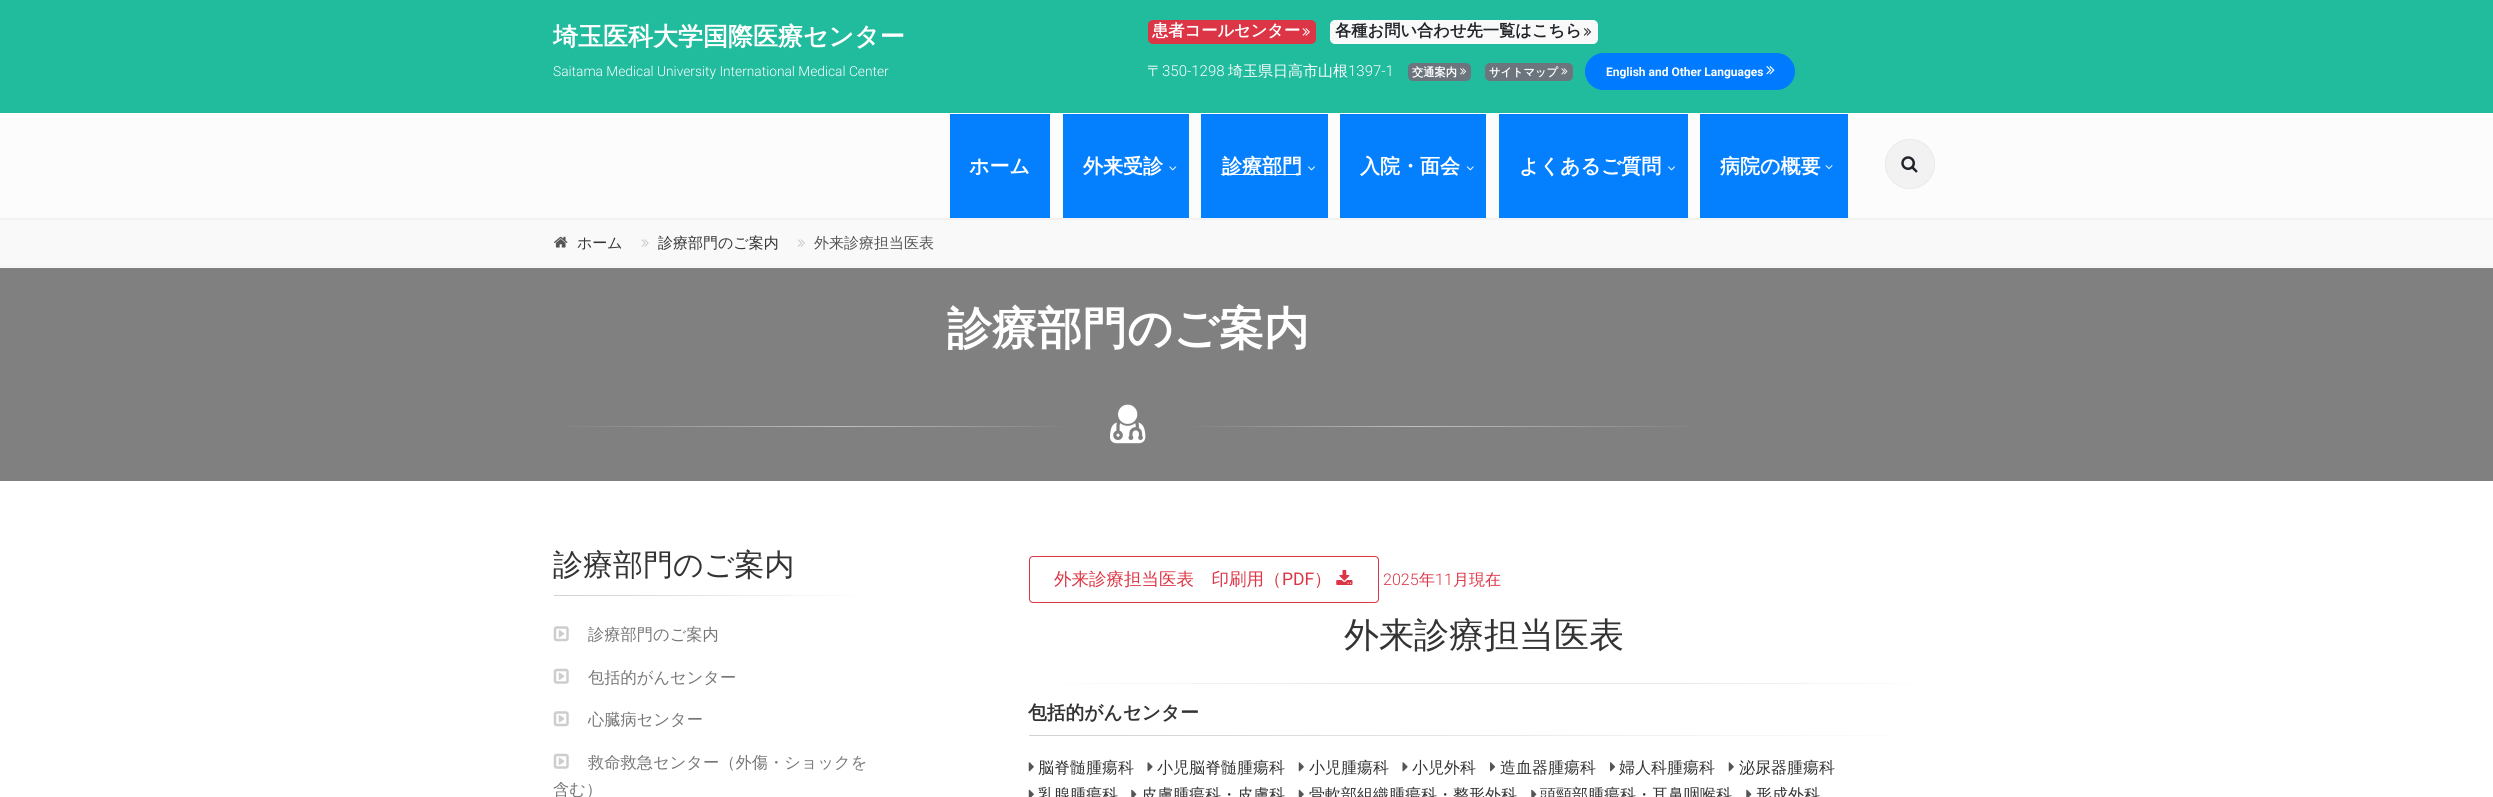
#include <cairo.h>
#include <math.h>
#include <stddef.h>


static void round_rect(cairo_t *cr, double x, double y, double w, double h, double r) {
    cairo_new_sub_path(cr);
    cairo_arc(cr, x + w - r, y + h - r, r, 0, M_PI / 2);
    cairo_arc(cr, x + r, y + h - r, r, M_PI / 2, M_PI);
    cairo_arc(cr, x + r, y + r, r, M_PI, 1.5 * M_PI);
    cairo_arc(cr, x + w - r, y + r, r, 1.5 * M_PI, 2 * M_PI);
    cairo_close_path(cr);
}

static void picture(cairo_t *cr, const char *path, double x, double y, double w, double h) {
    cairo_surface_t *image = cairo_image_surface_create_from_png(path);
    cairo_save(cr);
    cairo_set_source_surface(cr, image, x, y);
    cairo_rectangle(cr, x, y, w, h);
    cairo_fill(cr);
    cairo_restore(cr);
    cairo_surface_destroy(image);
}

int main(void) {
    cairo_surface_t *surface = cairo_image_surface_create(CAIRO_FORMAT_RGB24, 2493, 797);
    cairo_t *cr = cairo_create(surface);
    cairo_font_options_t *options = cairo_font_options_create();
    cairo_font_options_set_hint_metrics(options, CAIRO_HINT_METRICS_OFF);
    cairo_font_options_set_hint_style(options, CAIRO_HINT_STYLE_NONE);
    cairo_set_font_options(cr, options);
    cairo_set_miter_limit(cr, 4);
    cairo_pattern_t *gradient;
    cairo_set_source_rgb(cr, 1, 1, 1);
    cairo_paint(cr);
    cairo_set_source_rgb(cr, 0.129, 0.733, 0.616);
    cairo_rectangle(cr, 0, 0, 2493, 113);
    cairo_fill(cr);
    cairo_select_font_face(cr, "WenQuanYi Zen Hei", CAIRO_FONT_SLANT_NORMAL, CAIRO_FONT_WEIGHT_BOLD);
    cairo_set_font_size(cr, 25);
    cairo_set_source_rgb(cr, 1, 1, 1);
    cairo_move_to(cr, 553, 45);
    cairo_show_text(cr, "埼玉医科大学国際医療センター");
    cairo_select_font_face(cr, "Roboto Light", CAIRO_FONT_SLANT_NORMAL, CAIRO_FONT_WEIGHT_NORMAL);
    cairo_set_font_size(cr, 13.75);
    cairo_move_to(cr, 553, 76);
    cairo_show_text(cr, "Saitama Medical University International Medical Center");
    cairo_set_source_rgb(cr, 0.863, 0.208, 0.271);
    round_rect(cr, 1148, 20, 168, 24, 5);
    cairo_fill(cr);
    cairo_select_font_face(cr, "WenQuanYi Zen Hei", CAIRO_FONT_SLANT_NORMAL, CAIRO_FONT_WEIGHT_BOLD);
    cairo_set_font_size(cr, 16.25);
    cairo_set_source_rgb(cr, 1, 1, 1);
    cairo_move_to(cr, 1152, 36);
    cairo_show_text(cr, "患者コールセンター");
    picture(cr, "img1.png", 1302, 28, 8, 8);
    cairo_set_source_rgb(cr, 0.973, 0.976, 0.98);
    round_rect(cr, 1330, 20, 268, 24, 5);
    cairo_fill(cr);
    cairo_set_source_rgb(cr, 0.129, 0.145, 0.161);
    cairo_move_to(cr, 1335, 36);
    cairo_show_text(cr, "各種お問い合わせ先一覧はこちら");
    picture(cr, "img2.png", 1583, 28, 9, 8);
    cairo_select_font_face(cr, "WenQuanYi Zen Hei Medium", CAIRO_FONT_SLANT_NORMAL, CAIRO_FONT_WEIGHT_NORMAL);
    cairo_set_font_size(cr, 15);
    cairo_set_source_rgb(cr, 1, 1, 1);
    cairo_move_to(cr, 1147, 76);
    cairo_show_text(cr, "〒");
    cairo_select_font_face(cr, "Roboto Light", CAIRO_FONT_SLANT_NORMAL, CAIRO_FONT_WEIGHT_NORMAL);
    cairo_move_to(cr, 1162, 76);
    cairo_show_text(cr, "350-1298");
    cairo_select_font_face(cr, "WenQuanYi Zen Hei Medium", CAIRO_FONT_SLANT_NORMAL, CAIRO_FONT_WEIGHT_NORMAL);
    cairo_move_to(cr, 1228, 76);
    cairo_show_text(cr, "埼玉県日高市山根");
    cairo_select_font_face(cr, "Roboto Light", CAIRO_FONT_SLANT_NORMAL, CAIRO_FONT_WEIGHT_NORMAL);
    cairo_move_to(cr, 1348, 76);
    cairo_show_text(cr, "1397-1");
    cairo_set_source_rgb(cr, 0.424, 0.459, 0.49);
    round_rect(cr, 1408, 63, 63, 18, 5);
    cairo_fill(cr);
    cairo_select_font_face(cr, "WenQuanYi Zen Hei", CAIRO_FONT_SLANT_NORMAL, CAIRO_FONT_WEIGHT_BOLD);
    cairo_set_font_size(cr, 11.25);
    cairo_set_source_rgb(cr, 1, 1, 1);
    cairo_move_to(cr, 1412, 76);
    cairo_show_text(cr, "交通案内");
    picture(cr, "img3.png", 1460, 68, 7, 7);
    cairo_set_source_rgb(cr, 0.424, 0.459, 0.49);
    round_rect(cr, 1485, 63, 88, 18, 5);
    cairo_fill(cr);
    cairo_set_source_rgb(cr, 1, 1, 1);
    cairo_move_to(cr, 1489, 76);
    cairo_show_text(cr, "サイトマップ");
    picture(cr, "img4.png", 1561, 68, 7, 7);
    cairo_set_source_rgb(cr, 0, 0.482, 1);
    round_rect(cr, 1585.5, 53.5, 209, 36, 18);
    cairo_fill_preserve(cr);
    cairo_set_line_width(cr, 1);
    cairo_stroke(cr);
    cairo_select_font_face(cr, "Roboto", CAIRO_FONT_SLANT_NORMAL, CAIRO_FONT_WEIGHT_BOLD);
    cairo_set_font_size(cr, 12);
    cairo_set_source_rgb(cr, 1, 1, 1);
    cairo_move_to(cr, 1606, 76);
    cairo_show_text(cr, "English and Other Languages");
    picture(cr, "img5.png", 1766, 66, 9, 9);
    cairo_set_source_rgb(cr, 0.988, 0.988, 0.988);
    cairo_rectangle(cr, 0, 114, 2493, 104);
    cairo_fill(cr);
    cairo_set_source_rgb(cr, 0.945, 0.945, 0.945);
    cairo_rectangle(cr, 0, 218, 2493, 2);
    cairo_fill(cr);
    cairo_set_source_rgb(cr, 0.016, 0.502, 1);
    cairo_rectangle(cr, 950, 114, 100, 104);
    cairo_fill(cr);
    cairo_select_font_face(cr, "WenQuanYi Zen Hei", CAIRO_FONT_SLANT_NORMAL, CAIRO_FONT_WEIGHT_BOLD);
    cairo_set_font_size(cr, 20);
    cairo_set_source_rgb(cr, 1, 1, 1);
    cairo_move_to(cr, 969, 173);
    cairo_show_text(cr, "ホーム");
    cairo_set_source_rgb(cr, 0.016, 0.502, 1);
    cairo_rectangle(cr, 1063, 114, 126, 104);
    cairo_fill(cr);
    cairo_set_source_rgb(cr, 1, 1, 1);
    cairo_move_to(cr, 1083, 173);
    cairo_show_text(cr, "外来受診");
    picture(cr, "img6.png", 1169, 166, 8, 5);
    cairo_set_source_rgb(cr, 0.016, 0.502, 1);
    cairo_rectangle(cr, 1201, 114, 127, 104);
    cairo_fill(cr);
    cairo_set_source_rgb(cr, 1, 1, 1);
    cairo_rectangle(cr, 1221, 174, 80, 1);
    cairo_fill(cr);
    cairo_move_to(cr, 1222, 173);
    cairo_show_text(cr, "診療部門");
    picture(cr, "img7.png", 1308, 166, 7, 5);
    cairo_set_source_rgb(cr, 0.016, 0.502, 1);
    cairo_rectangle(cr, 1340, 114, 146, 104);
    cairo_fill(cr);
    cairo_set_source_rgb(cr, 1, 1, 1);
    cairo_move_to(cr, 1360, 173);
    cairo_show_text(cr, "入院・面会");
    picture(cr, "img8.png", 1466, 166, 8, 5);
    cairo_set_source_rgb(cr, 0.016, 0.502, 1);
    cairo_rectangle(cr, 1499, 114, 189, 104);
    cairo_fill(cr);
    cairo_set_source_rgb(cr, 1, 1, 1);
    cairo_move_to(cr, 1519, 173);
    cairo_show_text(cr, "よくあるご質問");
    picture(cr, "img7.png", 1668, 166, 7, 5);
    cairo_set_source_rgb(cr, 0.016, 0.502, 1);
    cairo_rectangle(cr, 1700, 114, 148, 104);
    cairo_fill(cr);
    cairo_set_source_rgb(cr, 1, 1, 1);
    cairo_move_to(cr, 1720, 173);
    cairo_show_text(cr, "病院の概要");
    picture(cr, "img9.png", 1825, 165, 8, 5);
    cairo_set_source_rgb(cr, 0.949, 0.949, 0.949);
    cairo_arc(cr, 1910, 164, 24.5, 0, 2 * M_PI);
    cairo_fill_preserve(cr);
    cairo_set_source_rgb(cr, 0.914, 0.914, 0.914);
    cairo_stroke(cr);
    picture(cr, "img10.png", 1901, 156, 17, 17);
    cairo_set_source_rgb(cr, 0.973, 0.973, 0.973);
    cairo_rectangle(cr, 0, 220, 2493, 48);
    cairo_fill(cr);
    cairo_set_source_rgb(cr, 0.957, 0.957, 0.957);
    cairo_rectangle(cr, 0, 266, 2493, 1);
    cairo_fill(cr);
    picture(cr, "img11.png", 554, 236, 14, 12);
    cairo_select_font_face(cr, "WenQuanYi Zen Hei Medium", CAIRO_FONT_SLANT_NORMAL, CAIRO_FONT_WEIGHT_NORMAL);
    cairo_set_font_size(cr, 15);
    cairo_set_source_rgb(cr, 0.2, 0.2, 0.2);
    cairo_move_to(cr, 577, 248);
    cairo_show_text(cr, "ホーム");
    picture(cr, "img12.png", 641, 239, 8, 8);
    cairo_move_to(cr, 658, 248);
    cairo_show_text(cr, "診療部門のご案内");
    picture(cr, "img13.png", 797, 239, 8, 8);
    cairo_set_source_rgb(cr, 0.333, 0.333, 0.333);
    cairo_move_to(cr, 814, 248);
    cairo_show_text(cr, "外来診療担当医表");
    cairo_set_source_rgb(cr, 0.502, 0.502, 0.502);
    cairo_rectangle(cr, 0, 268, 2493, 213);
    cairo_fill(cr);
    cairo_select_font_face(cr, "WenQuanYi Zen Hei", CAIRO_FONT_SLANT_NORMAL, CAIRO_FONT_WEIGHT_BOLD);
    cairo_set_font_size(cr, 45);
    cairo_set_source_rgb(cr, 1, 1, 1);
    cairo_move_to(cr, 947, 344);
    cairo_show_text(cr, "診療部門のご案内");
    gradient = cairo_pattern_create_linear(554, 427, 1704, 427);
    cairo_pattern_add_color_stop_rgba(gradient, 0, 0.502, 0.502, 0.502, 1);
    cairo_pattern_add_color_stop_rgba(gradient, 0.25, 0.753, 0.753, 0.753, 1);
    cairo_pattern_add_color_stop_rgba(gradient, 0.45, 0.502, 0.502, 0.502, 1);
    cairo_pattern_add_color_stop_rgba(gradient, 0.55, 0.502, 0.502, 0.502, 1);
    cairo_pattern_add_color_stop_rgba(gradient, 0.75, 0.753, 0.753, 0.753, 1);
    cairo_pattern_add_color_stop_rgba(gradient, 1, 0.502, 0.502, 0.502, 1);
    cairo_set_source(cr, gradient);
    cairo_pattern_destroy(gradient);
    cairo_rectangle(cr, 565, 426, 1128, 1);
    cairo_fill(cr);
    picture(cr, "img14.png", 1110, 404, 36, 40);
    cairo_select_font_face(cr, "WenQuanYi Zen Hei Medium", CAIRO_FONT_SLANT_NORMAL, CAIRO_FONT_WEIGHT_NORMAL);
    cairo_set_font_size(cr, 30);
    cairo_set_source_rgb(cr, 0.2, 0.2, 0.2);
    cairo_move_to(cr, 553, 575);
    cairo_show_text(cr, "診療部門のご案内");
    gradient = cairo_pattern_create_linear(554, 596, 873, 596);
    cairo_pattern_add_color_stop_rgba(gradient, 0, 0.82, 0.82, 0.82, 1);
    cairo_pattern_add_color_stop_rgba(gradient, 0.35, 0.878, 0.878, 0.878, 1);
    cairo_pattern_add_color_stop_rgba(gradient, 0.7, 0.949, 0.949, 0.949, 1);
    cairo_pattern_add_color_stop_rgba(gradient, 1, 1, 1, 1, 1);
    cairo_set_source(cr, gradient);
    cairo_pattern_destroy(gradient);
    cairo_rectangle(cr, 554, 595, 301, 1);
    cairo_fill(cr);
    picture(cr, "img15.png", 553, 626, 16, 16);
    cairo_set_font_size(cr, 16.25);
    cairo_set_source_rgb(cr, 0.467, 0.467, 0.467);
    cairo_move_to(cr, 588, 640);
    cairo_show_text(cr, "診療部門のご案内");
    picture(cr, "img16.png", 553, 668, 16, 16);
    cairo_move_to(cr, 588, 683);
    cairo_show_text(cr, "包括的がんセンター");
    picture(cr, "img15.png", 553, 711, 16, 16);
    cairo_move_to(cr, 588, 725);
    cairo_show_text(cr, "心臓病センター");
    picture(cr, "img16.png", 553, 753, 16, 16);
    cairo_move_to(cr, 588, 768);
    cairo_show_text(cr, "救命救急センター（外傷・ショックを");
    cairo_move_to(cr, 553, 795);
    cairo_show_text(cr, "含む）");
    round_rect(cr, 1029.5, 556.5, 349, 46, 3.5);
    cairo_set_source_rgb(cr, 0.863, 0.208, 0.271);
    cairo_stroke(cr);
    cairo_set_font_size(cr, 17.5);
    cairo_move_to(cr, 1054, 585);
    cairo_show_text(cr, "外来診療担当医表　印刷用（");
    cairo_select_font_face(cr, "Roboto", CAIRO_FONT_SLANT_NORMAL, CAIRO_FONT_WEIGHT_NORMAL);
    cairo_move_to(cr, 1282, 585);
    cairo_show_text(cr, "PDF");
    cairo_select_font_face(cr, "WenQuanYi Zen Hei Medium", CAIRO_FONT_SLANT_NORMAL, CAIRO_FONT_WEIGHT_NORMAL);
    cairo_move_to(cr, 1314, 585);
    cairo_show_text(cr, "）");
    picture(cr, "img17.png", 1336, 570, 17, 15);
    cairo_select_font_face(cr, "Roboto Light", CAIRO_FONT_SLANT_NORMAL, CAIRO_FONT_WEIGHT_NORMAL);
    cairo_set_font_size(cr, 16);
    cairo_move_to(cr, 1383, 585);
    cairo_show_text(cr, "2025");
    cairo_select_font_face(cr, "WenQuanYi Zen Hei Medium", CAIRO_FONT_SLANT_NORMAL, CAIRO_FONT_WEIGHT_NORMAL);
    cairo_move_to(cr, 1419, 585);
    cairo_show_text(cr, "年");
    cairo_select_font_face(cr, "Roboto Light", CAIRO_FONT_SLANT_NORMAL, CAIRO_FONT_WEIGHT_NORMAL);
    cairo_move_to(cr, 1435, 585);
    cairo_show_text(cr, "11");
    cairo_select_font_face(cr, "WenQuanYi Zen Hei Medium", CAIRO_FONT_SLANT_NORMAL, CAIRO_FONT_WEIGHT_NORMAL);
    cairo_move_to(cr, 1453, 585);
    cairo_show_text(cr, "月現在");
    cairo_set_font_size(cr, 35);
    cairo_set_source_rgb(cr, 0.2, 0.2, 0.2);
    cairo_move_to(cr, 1344, 647);
    cairo_show_text(cr, "外来診療担当医表");
    gradient = cairo_pattern_create_linear(1029, 683, 1941, 683);
    cairo_pattern_add_color_stop_rgba(gradient, 0, 1, 1, 1, 1);
    cairo_pattern_add_color_stop_rgba(gradient, 0.35, 0.91, 0.91, 0.91, 1);
    cairo_pattern_add_color_stop_rgba(gradient, 0.7, 0.91, 0.91, 0.91, 1);
    cairo_pattern_add_color_stop_rgba(gradient, 1, 1, 1, 1, 1);
    cairo_set_source(cr, gradient);
    cairo_pattern_destroy(gradient);
    cairo_rectangle(cr, 1064, 683, 847, 1);
    cairo_fill(cr);
    cairo_select_font_face(cr, "WenQuanYi Zen Hei", CAIRO_FONT_SLANT_NORMAL, CAIRO_FONT_WEIGHT_BOLD);
    cairo_set_font_size(cr, 18.75);
    cairo_set_source_rgb(cr, 0.2, 0.2, 0.2);
    cairo_move_to(cr, 1028, 719);
    cairo_show_text(cr, "包括的がんセンター");
    gradient = cairo_pattern_create_linear(1029, 736, 1941, 736);
    cairo_pattern_add_color_stop_rgba(gradient, 0, 0.82, 0.82, 0.82, 1);
    cairo_pattern_add_color_stop_rgba(gradient, 0.35, 0.878, 0.878, 0.878, 1);
    cairo_pattern_add_color_stop_rgba(gradient, 0.7, 0.949, 0.949, 0.949, 1);
    cairo_pattern_add_color_stop_rgba(gradient, 1, 1, 1, 1, 1);
    cairo_set_source(cr, gradient);
    cairo_pattern_destroy(gradient);
    cairo_rectangle(cr, 1029, 735, 859, 1);
    cairo_fill(cr);
    picture(cr, "img18.png", 1028, 762, 6, 10);
    cairo_select_font_face(cr, "WenQuanYi Zen Hei Medium", CAIRO_FONT_SLANT_NORMAL, CAIRO_FONT_WEIGHT_NORMAL);
    cairo_set_font_size(cr, 16);
    cairo_set_source_rgb(cr, 0.2, 0.2, 0.2);
    cairo_move_to(cr, 1038, 773);
    cairo_show_text(cr, "脳脊髄腫瘍科");
    picture(cr, "img19.png", 1147, 762, 6, 10);
    cairo_move_to(cr, 1157, 773);
    cairo_show_text(cr, "小児脳脊髄腫瘍科");
    picture(cr, "img18.png", 1298, 762, 6, 10);
    cairo_move_to(cr, 1309, 773);
    cairo_show_text(cr, "小児腫瘍科");
    picture(cr, "img19.png", 1402, 762, 6, 10);
    cairo_move_to(cr, 1412, 773);
    cairo_show_text(cr, "小児外科");
    picture(cr, "img20.png", 1490, 762, 6, 10);
    cairo_move_to(cr, 1500, 773);
    cairo_show_text(cr, "造血器腫瘍科");
    picture(cr, "img20.png", 1610, 762, 6, 10);
    cairo_move_to(cr, 1619, 773);
    cairo_show_text(cr, "婦人科腫瘍科");
    picture(cr, "img18.png", 1728, 762, 6, 10);
    cairo_move_to(cr, 1739, 773);
    cairo_show_text(cr, "泌尿器腫瘍科");
    picture(cr, "img21.png", 1028, 789, 6, 8);
    cairo_move_to(cr, 1038, 800);
    cairo_show_text(cr, "乳腺腫瘍科");
    picture(cr, "img22.png", 1131, 789, 6, 8);
    cairo_move_to(cr, 1141, 800);
    cairo_show_text(cr, "皮膚腫瘍科・皮膚科");
    picture(cr, "img21.png", 1298, 789, 6, 8);
    cairo_move_to(cr, 1309, 800);
    cairo_show_text(cr, "骨軟部組織腫瘍科・整形外科");
    picture(cr, "img22.png", 1531, 789, 6, 8);
    cairo_move_to(cr, 1540, 800);
    cairo_show_text(cr, "頭頸部腫瘍科・耳鼻咽喉科");
    picture(cr, "img22.png", 1746, 789, 6, 8);
    cairo_move_to(cr, 1756, 800);
    cairo_show_text(cr, "形成外科");
    cairo_surface_write_to_png(surface, "page.png");
    cairo_font_options_destroy(options);
    cairo_destroy(cr);
    cairo_surface_destroy(surface);
    return 0;
}
